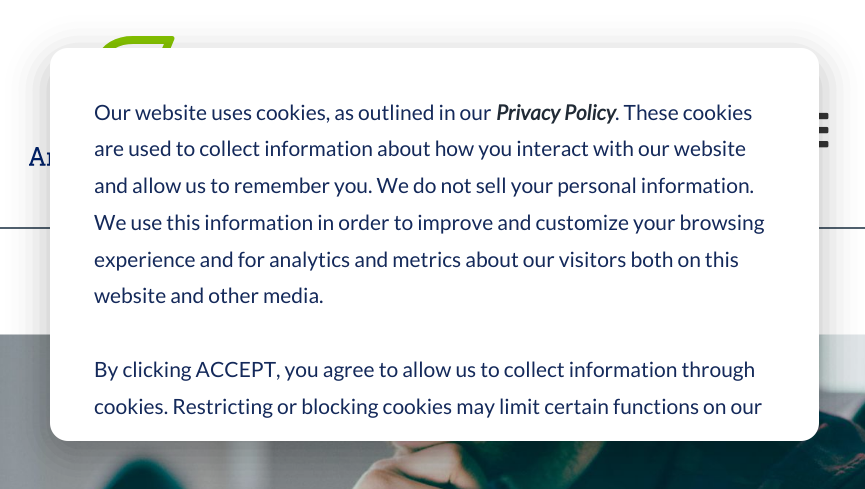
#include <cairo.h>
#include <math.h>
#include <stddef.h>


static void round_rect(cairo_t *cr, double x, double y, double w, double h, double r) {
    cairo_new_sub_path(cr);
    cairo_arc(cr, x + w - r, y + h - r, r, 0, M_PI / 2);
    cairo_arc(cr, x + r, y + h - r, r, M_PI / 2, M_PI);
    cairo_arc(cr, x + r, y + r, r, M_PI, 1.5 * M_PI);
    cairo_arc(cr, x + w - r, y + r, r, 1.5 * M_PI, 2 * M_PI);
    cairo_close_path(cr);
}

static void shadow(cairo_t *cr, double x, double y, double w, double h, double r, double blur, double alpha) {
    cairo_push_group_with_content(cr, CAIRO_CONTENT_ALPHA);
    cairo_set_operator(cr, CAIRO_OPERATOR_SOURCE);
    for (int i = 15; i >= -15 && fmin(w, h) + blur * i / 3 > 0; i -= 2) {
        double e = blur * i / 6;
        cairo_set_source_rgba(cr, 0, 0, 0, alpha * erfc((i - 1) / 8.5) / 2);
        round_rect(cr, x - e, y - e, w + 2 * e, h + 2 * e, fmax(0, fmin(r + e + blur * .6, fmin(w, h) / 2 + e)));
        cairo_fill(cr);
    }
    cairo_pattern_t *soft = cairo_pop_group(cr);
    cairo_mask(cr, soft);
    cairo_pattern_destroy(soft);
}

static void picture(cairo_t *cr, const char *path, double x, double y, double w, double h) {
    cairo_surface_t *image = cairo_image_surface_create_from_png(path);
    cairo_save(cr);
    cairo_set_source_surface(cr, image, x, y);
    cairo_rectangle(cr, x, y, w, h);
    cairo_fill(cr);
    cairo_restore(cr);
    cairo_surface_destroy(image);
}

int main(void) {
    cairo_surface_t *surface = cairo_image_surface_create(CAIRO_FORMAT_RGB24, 865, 489);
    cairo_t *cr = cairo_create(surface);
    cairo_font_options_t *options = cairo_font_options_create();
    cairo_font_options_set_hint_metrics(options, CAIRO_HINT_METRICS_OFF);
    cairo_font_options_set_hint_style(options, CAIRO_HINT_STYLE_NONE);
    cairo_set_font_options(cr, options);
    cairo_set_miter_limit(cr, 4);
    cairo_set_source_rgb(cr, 1, 1, 1);
    cairo_paint(cr);
    picture(cr, "img1.png", 29, 36, 146, 130);
    picture(cr, "img2.png", 819, 112, 10, 36);
    cairo_set_source_rgb(cr, 0.314, 0.376, 0.431);
    cairo_rectangle(cr, 0, 227, 865, 2);
    cairo_fill(cr);
    picture(cr, "img3.png", 0, 334, 865, 155);
    cairo_set_source_rgb(cr, 0, 0, 0);
    shadow(cr, 50, 60, 769, 393, 18, 21, 0.28);
    cairo_set_source_rgb(cr, 1, 1, 1);
    round_rect(cr, 50, 48, 769, 393, 18);
    cairo_fill(cr);
    cairo_select_font_face(cr, "Lato", CAIRO_FONT_SLANT_NORMAL, CAIRO_FONT_WEIGHT_NORMAL);
    cairo_set_font_size(cr, 21);
    cairo_set_source_rgb(cr, 0.082, 0.161, 0.353);
    cairo_move_to(cr, 94, 120);
    cairo_show_text(cr, "Our website uses cookies, as outlined in our");
    cairo_select_font_face(cr, "Lato", CAIRO_FONT_SLANT_ITALIC, CAIRO_FONT_WEIGHT_BOLD);
    cairo_set_source_rgb(cr, 0.129, 0.169, 0.212);
    cairo_move_to(cr, 496, 120);
    cairo_show_text(cr, "Privacy Policy");
    cairo_select_font_face(cr, "Lato", CAIRO_FONT_SLANT_NORMAL, CAIRO_FONT_WEIGHT_NORMAL);
    cairo_set_source_rgb(cr, 0.082, 0.161, 0.353);
    cairo_move_to(cr, 615, 120);
    cairo_show_text(cr, ". These cookies");
    cairo_move_to(cr, 94, 156);
    cairo_show_text(cr, "are used to collect information about how you interact with our website");
    cairo_move_to(cr, 94, 193);
    cairo_show_text(cr, "and allow us to remember you. We do not sell your personal information.");
    cairo_move_to(cr, 94, 230);
    cairo_show_text(cr, "We use this information in order to improve and customize your browsing");
    cairo_move_to(cr, 94, 267);
    cairo_show_text(cr, "experience and for analytics and metrics about our visitors both on this");
    cairo_move_to(cr, 94, 303);
    cairo_show_text(cr, "website and other media.");
    cairo_move_to(cr, 94, 377);
    cairo_show_text(cr, "By clicking ACCEPT, you agree to allow us to collect information through");
    cairo_move_to(cr, 94, 414);
    cairo_show_text(cr, "cookies. Restricting or blocking cookies may limit certain functions on our");
    cairo_surface_write_to_png(surface, "page.png");
    cairo_font_options_destroy(options);
    cairo_destroy(cr);
    cairo_surface_destroy(surface);
    return 0;
}
